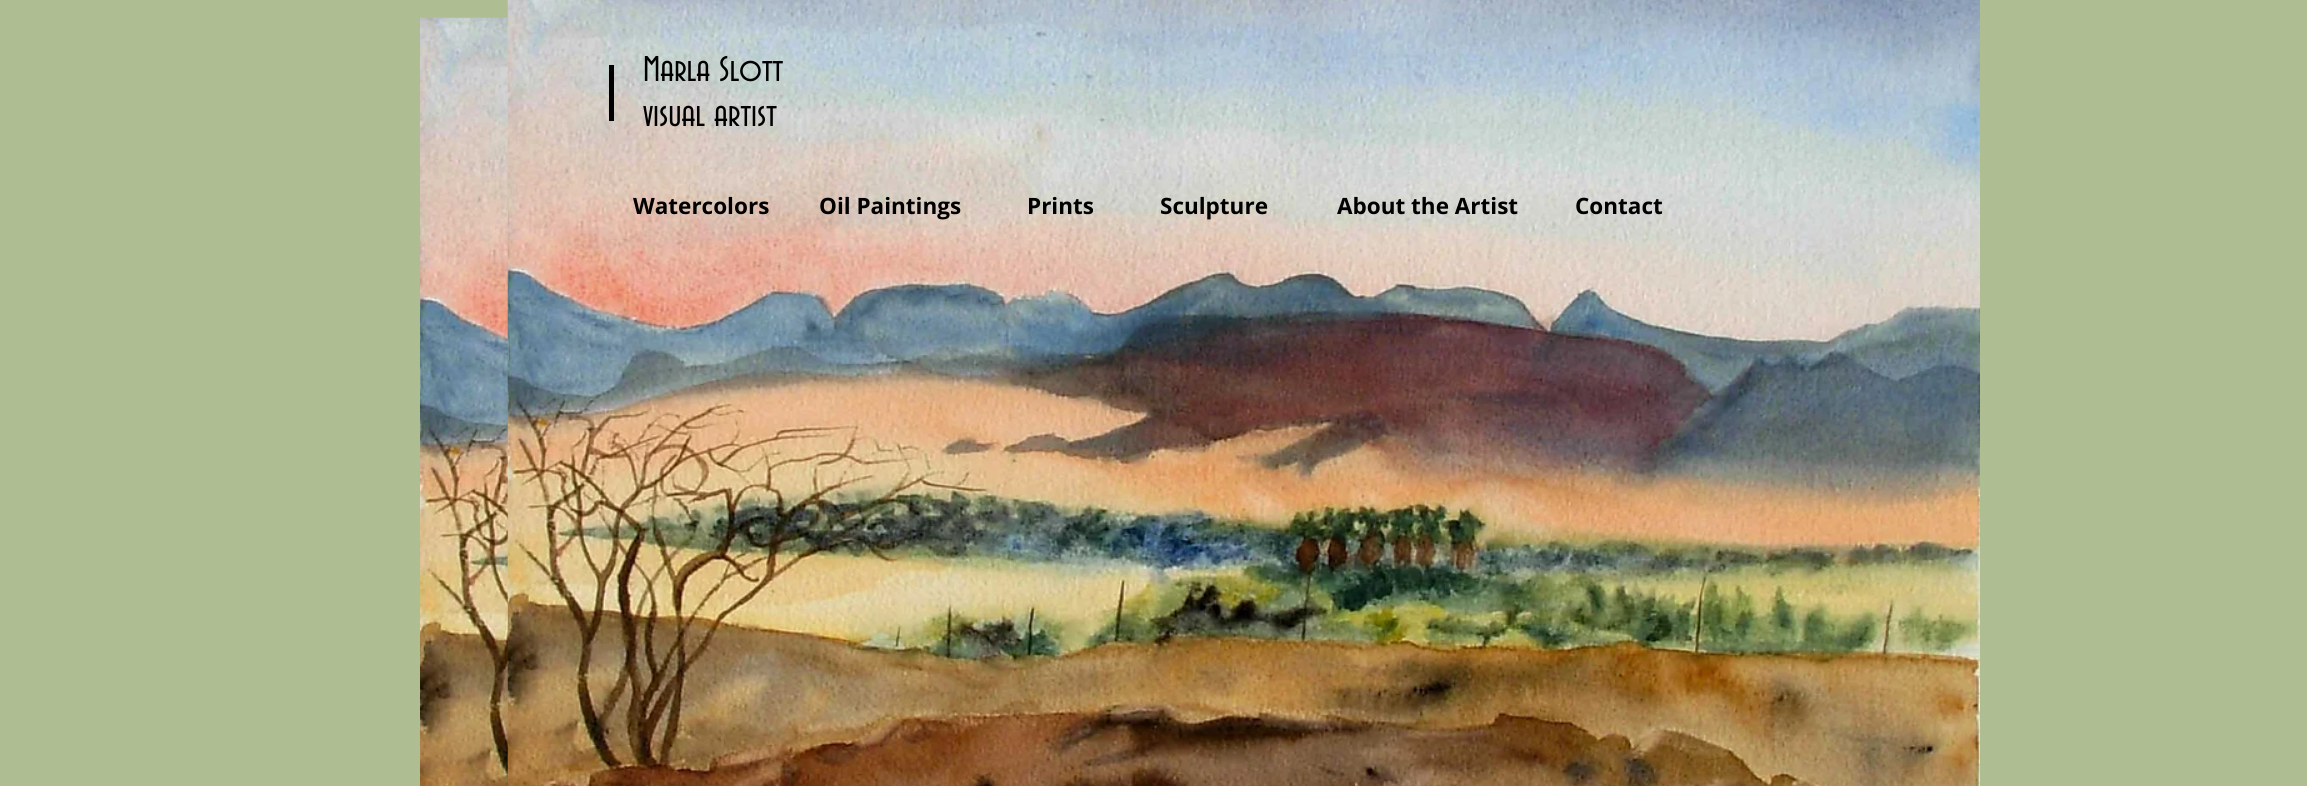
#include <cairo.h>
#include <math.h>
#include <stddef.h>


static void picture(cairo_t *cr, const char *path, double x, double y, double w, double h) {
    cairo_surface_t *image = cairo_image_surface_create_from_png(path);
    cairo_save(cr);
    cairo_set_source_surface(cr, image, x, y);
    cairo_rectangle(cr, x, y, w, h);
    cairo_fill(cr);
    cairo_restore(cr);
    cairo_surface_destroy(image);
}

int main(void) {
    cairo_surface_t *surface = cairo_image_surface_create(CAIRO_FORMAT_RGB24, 2307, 786);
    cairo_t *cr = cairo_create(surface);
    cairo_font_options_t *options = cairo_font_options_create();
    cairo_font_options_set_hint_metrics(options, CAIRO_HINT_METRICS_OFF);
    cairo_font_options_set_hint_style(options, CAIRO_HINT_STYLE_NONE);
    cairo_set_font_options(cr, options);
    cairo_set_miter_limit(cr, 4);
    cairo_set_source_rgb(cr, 0.682, 0.745, 0.573);
    cairo_paint(cr);
    picture(cr, "img1.png", 420, 17, 88, 769);
    picture(cr, "img2.png", 507, 0, 1473, 786);
    cairo_set_source_rgb(cr, 0, 0, 0);
    cairo_rectangle(cr, 609, 65, 5, 56);
    cairo_fill(cr);
    cairo_select_font_face(cr, "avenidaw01", CAIRO_FONT_SLANT_NORMAL, CAIRO_FONT_WEIGHT_NORMAL);
    cairo_set_font_size(cr, 37.5);
    cairo_move_to(cr, 643, 81);
    cairo_show_text(cr, "Marla Slott");
    cairo_move_to(cr, 643, 126);
    cairo_show_text(cr, "visual artist");
    cairo_select_font_face(cr, "Open Sans", CAIRO_FONT_SLANT_NORMAL, CAIRO_FONT_WEIGHT_BOLD);
    cairo_set_font_size(cr, 22.5);
    cairo_move_to(cr, 633, 214);
    cairo_show_text(cr, "Watercolors");
    cairo_move_to(cr, 819, 214);
    cairo_show_text(cr, "Oil Paintings");
    cairo_move_to(cr, 1027, 214);
    cairo_show_text(cr, "Prints");
    cairo_move_to(cr, 1160, 214);
    cairo_show_text(cr, "Sculpture");
    cairo_move_to(cr, 1337, 214);
    cairo_show_text(cr, "About the Artist");
    cairo_move_to(cr, 1575, 214);
    cairo_show_text(cr, "Contact");
    cairo_surface_write_to_png(surface, "page.png");
    cairo_font_options_destroy(options);
    cairo_destroy(cr);
    cairo_surface_destroy(surface);
    return 0;
}
